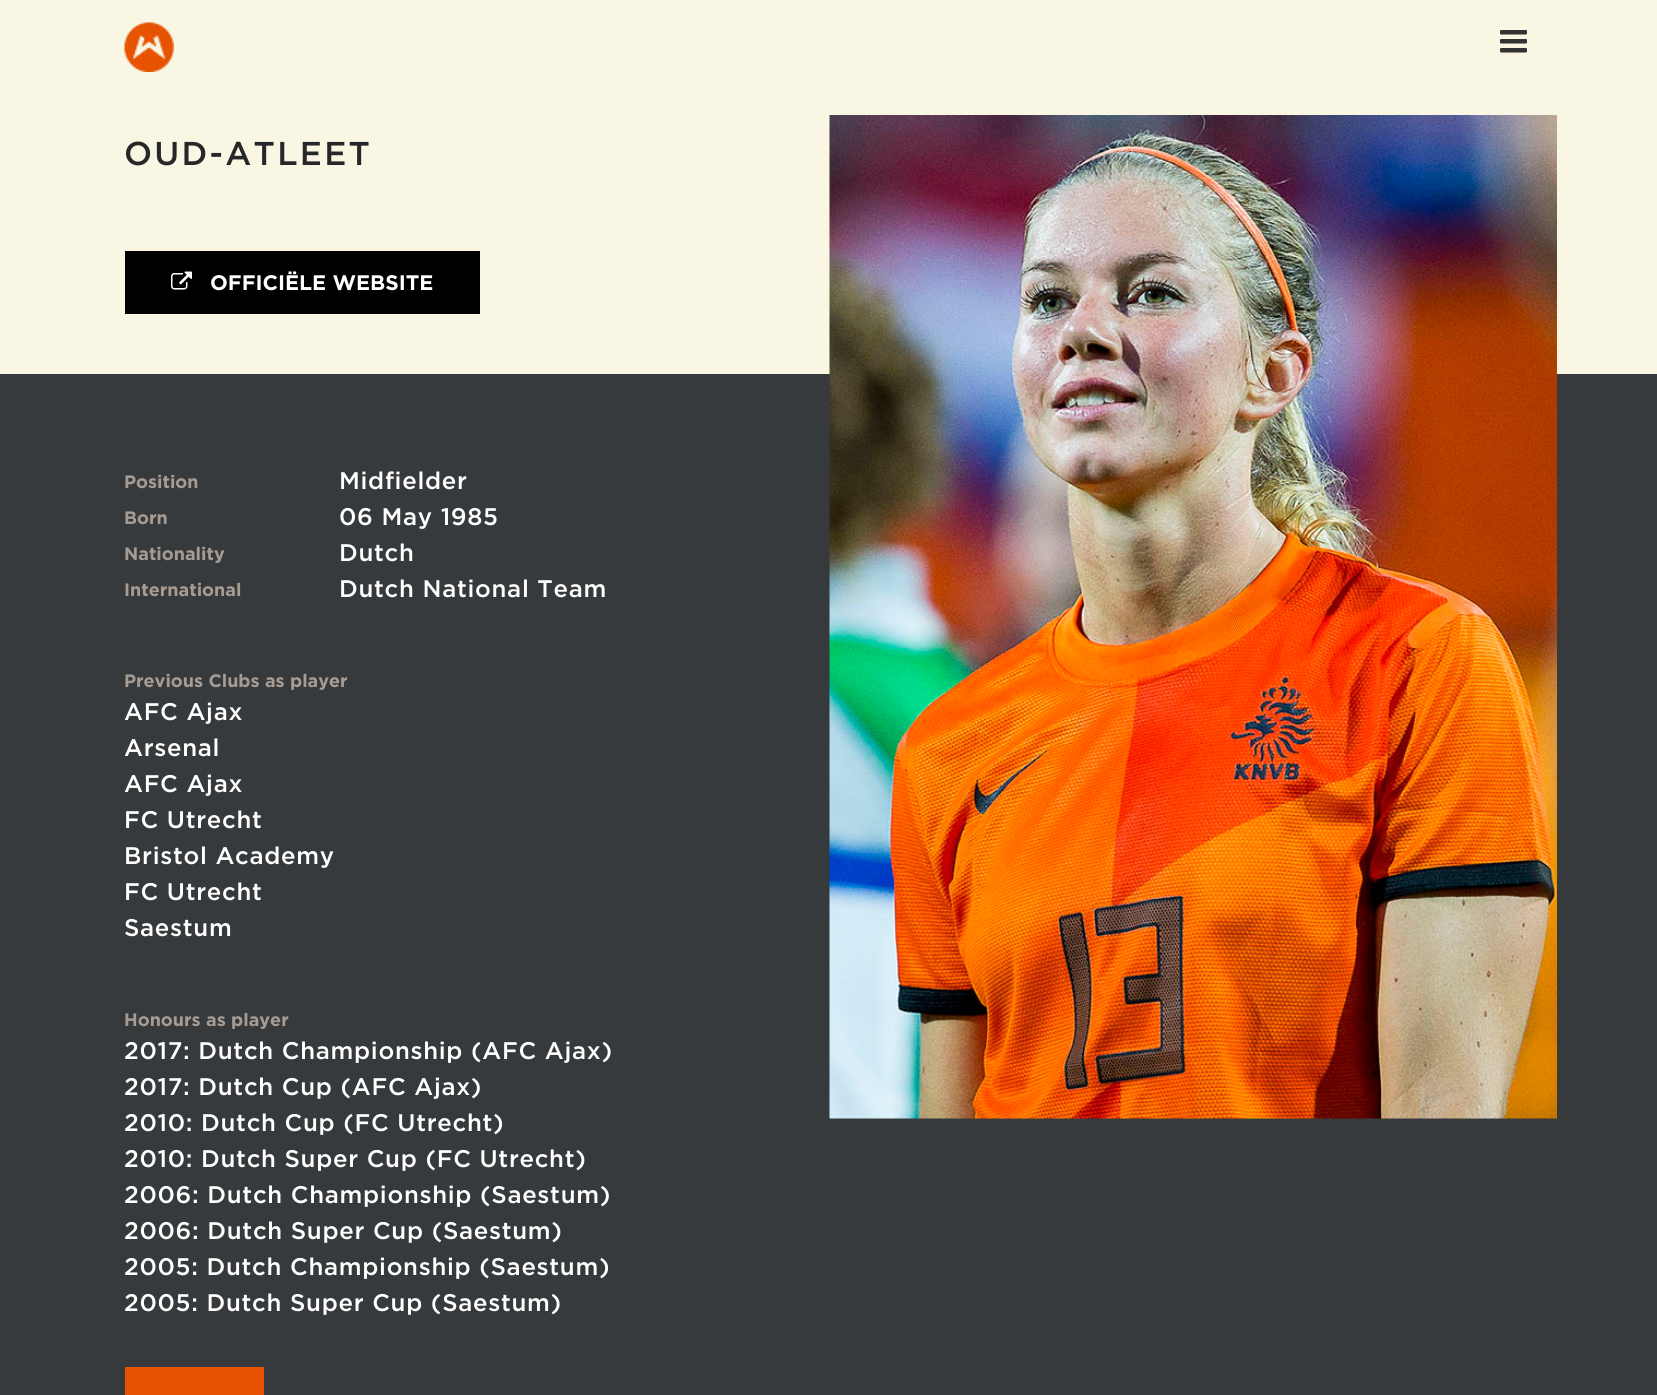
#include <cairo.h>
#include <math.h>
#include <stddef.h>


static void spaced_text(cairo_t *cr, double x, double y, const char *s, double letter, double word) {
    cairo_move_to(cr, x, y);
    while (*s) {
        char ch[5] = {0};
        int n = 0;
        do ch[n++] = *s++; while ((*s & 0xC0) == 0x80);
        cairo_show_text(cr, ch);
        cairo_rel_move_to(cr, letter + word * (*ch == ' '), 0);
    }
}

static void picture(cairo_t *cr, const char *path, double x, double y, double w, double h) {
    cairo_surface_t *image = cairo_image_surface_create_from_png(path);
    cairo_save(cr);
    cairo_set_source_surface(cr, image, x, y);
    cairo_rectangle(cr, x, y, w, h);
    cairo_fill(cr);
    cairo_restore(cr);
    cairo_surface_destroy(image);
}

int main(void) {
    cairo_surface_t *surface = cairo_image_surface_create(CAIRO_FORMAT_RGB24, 1657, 1395);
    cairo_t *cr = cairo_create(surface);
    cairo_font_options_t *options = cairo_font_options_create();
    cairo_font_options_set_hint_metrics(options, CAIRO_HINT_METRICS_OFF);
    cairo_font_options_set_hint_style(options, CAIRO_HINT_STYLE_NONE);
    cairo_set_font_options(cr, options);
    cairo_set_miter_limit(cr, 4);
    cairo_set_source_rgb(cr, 0.973, 0.965, 0.89);
    cairo_paint(cr);
    picture(cr, "img1.png", 124, 22, 50, 50);
    picture(cr, "img2.png", 1500, 30, 27, 23);
    cairo_select_font_face(cr, "Gotham Medium", CAIRO_FONT_SLANT_NORMAL, CAIRO_FONT_WEIGHT_NORMAL);
    cairo_set_font_size(cr, 33);
    cairo_set_source_rgb(cr, 0.149, 0.153, 0.157);
    spaced_text(cr, 124, 165, "OUD-ATLEET", 2.25, 0);
    cairo_set_source_rgb(cr, 0, 0, 0);
    cairo_rectangle(cr, 125, 251, 355, 63);
    cairo_fill(cr);
    picture(cr, "img3.png", 171, 271, 21, 19);
    cairo_select_font_face(cr, "Gotham", CAIRO_FONT_SLANT_NORMAL, CAIRO_FONT_WEIGHT_BOLD);
    cairo_set_font_size(cr, 21);
    cairo_set_source_rgb(cr, 1, 1, 1);
    cairo_move_to(cr, 210, 290);
    cairo_show_text(cr, "OFFICIËLE WEBSITE");
    cairo_set_source_rgb(cr, 0.216, 0.227, 0.235);
    cairo_rectangle(cr, 0, 374, 1657, 1021);
    cairo_fill(cr);
    cairo_set_font_size(cr, 18);
    cairo_set_source_rgb(cr, 0.655, 0.612, 0.58);
    cairo_move_to(cr, 124, 488);
    cairo_show_text(cr, "Position");
    cairo_select_font_face(cr, "Gotham Medium", CAIRO_FONT_SLANT_NORMAL, CAIRO_FONT_WEIGHT_NORMAL);
    cairo_set_font_size(cr, 24);
    cairo_set_source_rgb(cr, 1, 1, 1);
    spaced_text(cr, 339, 489, "Midfielder", 0.7, 0);
    cairo_select_font_face(cr, "Gotham", CAIRO_FONT_SLANT_NORMAL, CAIRO_FONT_WEIGHT_BOLD);
    cairo_set_font_size(cr, 18);
    cairo_set_source_rgb(cr, 0.655, 0.612, 0.58);
    cairo_move_to(cr, 124, 524);
    cairo_show_text(cr, "Born");
    cairo_select_font_face(cr, "Gotham Medium", CAIRO_FONT_SLANT_NORMAL, CAIRO_FONT_WEIGHT_NORMAL);
    cairo_set_font_size(cr, 24);
    cairo_set_source_rgb(cr, 1, 1, 1);
    spaced_text(cr, 339, 525, "06 May 1985", 0.7, 0);
    cairo_select_font_face(cr, "Gotham", CAIRO_FONT_SLANT_NORMAL, CAIRO_FONT_WEIGHT_BOLD);
    cairo_set_font_size(cr, 18);
    cairo_set_source_rgb(cr, 0.655, 0.612, 0.58);
    cairo_move_to(cr, 124, 560);
    cairo_show_text(cr, "Nationality");
    cairo_select_font_face(cr, "Gotham Medium", CAIRO_FONT_SLANT_NORMAL, CAIRO_FONT_WEIGHT_NORMAL);
    cairo_set_font_size(cr, 24);
    cairo_set_source_rgb(cr, 1, 1, 1);
    spaced_text(cr, 339, 561, "Dutch", 0.7, 0);
    cairo_select_font_face(cr, "Gotham", CAIRO_FONT_SLANT_NORMAL, CAIRO_FONT_WEIGHT_BOLD);
    cairo_set_font_size(cr, 18);
    cairo_set_source_rgb(cr, 0.655, 0.612, 0.58);
    cairo_move_to(cr, 124, 596);
    cairo_show_text(cr, "International");
    cairo_select_font_face(cr, "Gotham Medium", CAIRO_FONT_SLANT_NORMAL, CAIRO_FONT_WEIGHT_NORMAL);
    cairo_set_font_size(cr, 24);
    cairo_set_source_rgb(cr, 1, 1, 1);
    spaced_text(cr, 339, 597, "Dutch National Team", 0.7, 0);
    cairo_select_font_face(cr, "Gotham", CAIRO_FONT_SLANT_NORMAL, CAIRO_FONT_WEIGHT_BOLD);
    cairo_set_font_size(cr, 18);
    cairo_set_source_rgb(cr, 0.655, 0.612, 0.58);
    cairo_move_to(cr, 124, 687);
    cairo_show_text(cr, "Previous Clubs as player");
    cairo_select_font_face(cr, "Gotham Medium", CAIRO_FONT_SLANT_NORMAL, CAIRO_FONT_WEIGHT_NORMAL);
    cairo_set_font_size(cr, 24);
    cairo_set_source_rgb(cr, 1, 1, 1);
    spaced_text(cr, 124, 720, "AFC Ajax", 0.7, 0);
    spaced_text(cr, 124, 756, "Arsenal", 0.7, 0);
    spaced_text(cr, 124, 792, "AFC Ajax", 0.7, 0);
    spaced_text(cr, 124, 828, "FC Utrecht", 0.7, 0);
    spaced_text(cr, 124, 864, "Bristol Academy", 0.7, 0);
    spaced_text(cr, 124, 900, "FC Utrecht", 0.7, 0);
    spaced_text(cr, 124, 936, "Saestum", 0.7, 0);
    cairo_select_font_face(cr, "Gotham", CAIRO_FONT_SLANT_NORMAL, CAIRO_FONT_WEIGHT_BOLD);
    cairo_set_font_size(cr, 18);
    cairo_set_source_rgb(cr, 0.655, 0.612, 0.58);
    cairo_move_to(cr, 124, 1026);
    cairo_show_text(cr, "Honours as player");
    cairo_select_font_face(cr, "Gotham Medium", CAIRO_FONT_SLANT_NORMAL, CAIRO_FONT_WEIGHT_NORMAL);
    cairo_set_font_size(cr, 24);
    cairo_set_source_rgb(cr, 1, 1, 1);
    spaced_text(cr, 124, 1059, "2017: Dutch Championship (AFC Ajax)", 0.7, 0);
    spaced_text(cr, 124, 1095, "2017: Dutch Cup (AFC Ajax)", 0.7, 0);
    spaced_text(cr, 124, 1131, "2010: Dutch Cup (FC Utrecht)", 0.7, 0);
    spaced_text(cr, 124, 1167, "2010: Dutch Super Cup (FC Utrecht)", 0.7, 0);
    spaced_text(cr, 124, 1203, "2006: Dutch Championship (Saestum)", 0.7, 0);
    spaced_text(cr, 124, 1239, "2006: Dutch Super Cup (Saestum)", 0.7, 0);
    spaced_text(cr, 124, 1275, "2005: Dutch Championship (Saestum)", 0.7, 0);
    spaced_text(cr, 124, 1311, "2005: Dutch Super Cup (Saestum)", 0.7, 0);
    cairo_set_source_rgb(cr, 0.906, 0.325, 0);
    cairo_rectangle(cr, 125, 1367, 139, 28);
    cairo_fill(cr);
    picture(cr, "img4.png", 829, 115, 728, 1004);
    cairo_surface_write_to_png(surface, "page.png");
    cairo_font_options_destroy(options);
    cairo_destroy(cr);
    cairo_surface_destroy(surface);
    return 0;
}
